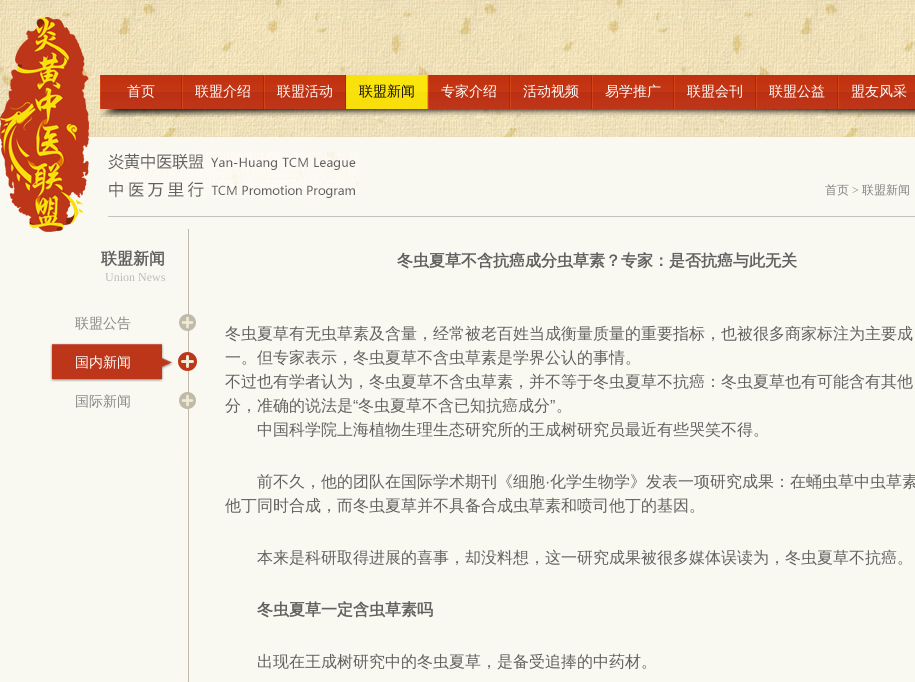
#include <cairo.h>
#include <math.h>
#include <stddef.h>


static void picture(cairo_t *cr, const char *path, double x, double y, double w, double h) {
    cairo_surface_t *image = cairo_image_surface_create_from_png(path);
    cairo_save(cr);
    cairo_set_source_surface(cr, image, x, y);
    cairo_rectangle(cr, x, y, w, h);
    cairo_fill(cr);
    cairo_restore(cr);
    cairo_surface_destroy(image);
}

int main(void) {
    cairo_surface_t *surface = cairo_image_surface_create(CAIRO_FORMAT_RGB24, 915, 682);
    cairo_t *cr = cairo_create(surface);
    cairo_font_options_t *options = cairo_font_options_create();
    cairo_font_options_set_hint_metrics(options, CAIRO_HINT_METRICS_OFF);
    cairo_font_options_set_hint_style(options, CAIRO_HINT_STYLE_NONE);
    cairo_set_font_options(cr, options);
    cairo_set_miter_limit(cr, 4);
    cairo_set_source_rgb(cr, 1, 1, 1);
    cairo_paint(cr);
    picture(cr, "img1.png", 0, 0, 915, 137);
    cairo_set_source_rgb(cr, 0.98, 0.973, 0.945);
    cairo_rectangle(cr, 0, 137, 915, 545);
    cairo_fill(cr);
    picture(cr, "img2.png", 0, 17, 89, 215);
    picture(cr, "img3.png", 100, 75, 815, 42);
    picture(cr, "img4.png", 100, 75, 82, 34);
    cairo_select_font_face(cr, "WenQuanYi Zen Hei Medium", CAIRO_FONT_SLANT_NORMAL, CAIRO_FONT_WEIGHT_NORMAL);
    cairo_set_font_size(cr, 14);
    cairo_set_source_rgb(cr, 1, 1, 1);
    cairo_move_to(cr, 127, 96);
    cairo_show_text(cr, "首页");
    picture(cr, "img4.png", 182, 75, 82, 34);
    cairo_move_to(cr, 195, 96);
    cairo_show_text(cr, "联盟介绍");
    picture(cr, "img4.png", 264, 75, 82, 34);
    cairo_move_to(cr, 277, 96);
    cairo_show_text(cr, "联盟活动");
    picture(cr, "img5.png", 346, 75, 82, 34);
    cairo_set_source_rgb(cr, 0.075, 0.055, 0.027);
    cairo_move_to(cr, 359, 96);
    cairo_show_text(cr, "联盟新闻");
    picture(cr, "img4.png", 428, 75, 82, 34);
    cairo_set_source_rgb(cr, 1, 1, 1);
    cairo_move_to(cr, 441, 96);
    cairo_show_text(cr, "专家介绍");
    picture(cr, "img4.png", 510, 75, 82, 34);
    cairo_move_to(cr, 523, 96);
    cairo_show_text(cr, "活动视频");
    picture(cr, "img4.png", 592, 75, 82, 34);
    cairo_move_to(cr, 605, 96);
    cairo_show_text(cr, "易学推广");
    picture(cr, "img4.png", 674, 75, 82, 34);
    cairo_move_to(cr, 687, 96);
    cairo_show_text(cr, "联盟会刊");
    picture(cr, "img4.png", 756, 75, 82, 34);
    cairo_move_to(cr, 769, 96);
    cairo_show_text(cr, "联盟公益");
    picture(cr, "img6.png", 838, 75, 77, 34);
    cairo_move_to(cr, 851, 96);
    cairo_show_text(cr, "盟友风采");
    cairo_set_source_rgb(cr, 0.773, 0.765, 0.749);
    cairo_rectangle(cr, 108, 216, 807, 1);
    cairo_fill(cr);
    picture(cr, "img7.png", 108, 152, 251, 46);
    cairo_set_font_size(cr, 12);
    cairo_set_source_rgb(cr, 0.506, 0.506, 0.506);
    cairo_move_to(cr, 825, 194);
    cairo_show_text(cr, "首页");
    cairo_select_font_face(cr, "Liberation Serif", CAIRO_FONT_SLANT_NORMAL, CAIRO_FONT_WEIGHT_NORMAL);
    cairo_move_to(cr, 852, 194);
    cairo_show_text(cr, ">");
    cairo_select_font_face(cr, "WenQuanYi Zen Hei Medium", CAIRO_FONT_SLANT_NORMAL, CAIRO_FONT_WEIGHT_NORMAL);
    cairo_move_to(cr, 862, 194);
    cairo_show_text(cr, "联盟新闻");
    picture(cr, "img8.png", 188, 229, 1, 453);
    cairo_select_font_face(cr, "WenQuanYi Zen Hei", CAIRO_FONT_SLANT_NORMAL, CAIRO_FONT_WEIGHT_BOLD);
    cairo_set_font_size(cr, 16);
    cairo_set_source_rgb(cr, 0.38, 0.38, 0.38);
    cairo_move_to(cr, 101, 264);
    cairo_show_text(cr, "联盟新闻");
    cairo_select_font_face(cr, "Liberation Serif", CAIRO_FONT_SLANT_NORMAL, CAIRO_FONT_WEIGHT_NORMAL);
    cairo_set_font_size(cr, 12);
    cairo_set_source_rgb(cr, 0.741, 0.733, 0.733);
    cairo_move_to(cr, 105, 281);
    cairo_show_text(cr, "Union News");
    picture(cr, "img9.png", 179, 314, 17, 17);
    cairo_select_font_face(cr, "WenQuanYi Zen Hei Medium", CAIRO_FONT_SLANT_NORMAL, CAIRO_FONT_WEIGHT_NORMAL);
    cairo_set_font_size(cr, 14);
    cairo_set_source_rgb(cr, 0.533, 0.529, 0.522);
    cairo_move_to(cr, 75, 328);
    cairo_show_text(cr, "联盟公告");
    picture(cr, "img10.png", 50, 343, 147, 39);
    cairo_set_source_rgb(cr, 1, 1, 1);
    cairo_move_to(cr, 75, 367);
    cairo_show_text(cr, "国内新闻");
    picture(cr, "img9.png", 179, 392, 17, 17);
    cairo_set_source_rgb(cr, 0.533, 0.529, 0.522);
    cairo_move_to(cr, 75, 406);
    cairo_show_text(cr, "国际新闻");
    cairo_select_font_face(cr, "WenQuanYi Zen Hei", CAIRO_FONT_SLANT_NORMAL, CAIRO_FONT_WEIGHT_BOLD);
    cairo_set_font_size(cr, 16);
    cairo_set_source_rgb(cr, 0.38, 0.38, 0.38);
    cairo_move_to(cr, 397, 266);
    cairo_show_text(cr, "冬虫夏草不含抗癌成分虫草素？专家：是否抗癌与此无关");
    cairo_select_font_face(cr, "WenQuanYi Zen Hei Medium", CAIRO_FONT_SLANT_NORMAL, CAIRO_FONT_WEIGHT_NORMAL);
    cairo_move_to(cr, 225, 339);
    cairo_show_text(cr, "冬虫夏草有无虫草素及含量，经常被老百姓当成衡量质量的重要指标，也被很多商家标注为主要成");
    cairo_move_to(cr, 225, 363);
    cairo_show_text(cr, "一。但专家表示，冬虫夏草不含虫草素是学界公认的事情。");
    cairo_move_to(cr, 225, 387);
    cairo_show_text(cr, "不过也有学者认为，冬虫夏草不含虫草素，并不等于冬虫夏草不抗癌：冬虫夏草也有可能含有其他");
    cairo_move_to(cr, 225, 411);
    cairo_show_text(cr, "分，准确的说法是");
    cairo_select_font_face(cr, "Liberation Sans", CAIRO_FONT_SLANT_NORMAL, CAIRO_FONT_WEIGHT_NORMAL);
    cairo_move_to(cr, 353, 411);
    cairo_show_text(cr, "“");
    cairo_select_font_face(cr, "WenQuanYi Zen Hei Medium", CAIRO_FONT_SLANT_NORMAL, CAIRO_FONT_WEIGHT_NORMAL);
    cairo_move_to(cr, 358, 411);
    cairo_show_text(cr, "冬虫夏草不含已知抗癌成分");
    cairo_select_font_face(cr, "Liberation Sans", CAIRO_FONT_SLANT_NORMAL, CAIRO_FONT_WEIGHT_NORMAL);
    cairo_move_to(cr, 550, 411);
    cairo_show_text(cr, "”");
    cairo_select_font_face(cr, "WenQuanYi Zen Hei Medium", CAIRO_FONT_SLANT_NORMAL, CAIRO_FONT_WEIGHT_NORMAL);
    cairo_move_to(cr, 556, 411);
    cairo_show_text(cr, "。");
    cairo_move_to(cr, 257, 435);
    cairo_show_text(cr, "中国科学院上海植物生理生态研究所的王成树研究员最近有些哭笑不得。");
    cairo_move_to(cr, 257, 487);
    cairo_show_text(cr, "前不久，他的团队在国际学术期刊《细胞");
    cairo_select_font_face(cr, "Liberation Sans", CAIRO_FONT_SLANT_NORMAL, CAIRO_FONT_WEIGHT_NORMAL);
    cairo_move_to(cr, 545, 487);
    cairo_show_text(cr, "·");
    cairo_select_font_face(cr, "WenQuanYi Zen Hei Medium", CAIRO_FONT_SLANT_NORMAL, CAIRO_FONT_WEIGHT_NORMAL);
    cairo_move_to(cr, 550, 487);
    cairo_show_text(cr, "化学生物学》发表一项研究成果：在蛹虫草中虫草素");
    cairo_move_to(cr, 225, 511);
    cairo_show_text(cr, "他丁同时合成，而冬虫夏草并不具备合成虫草素和喷司他丁的基因。");
    cairo_move_to(cr, 257, 563);
    cairo_show_text(cr, "本来是科研取得进展的喜事，却没料想，这一研究成果被很多媒体误读为，冬虫夏草不抗癌。");
    cairo_select_font_face(cr, "WenQuanYi Zen Hei", CAIRO_FONT_SLANT_NORMAL, CAIRO_FONT_WEIGHT_BOLD);
    cairo_move_to(cr, 257, 615);
    cairo_show_text(cr, "冬虫夏草一定含虫草素吗");
    cairo_select_font_face(cr, "WenQuanYi Zen Hei Medium", CAIRO_FONT_SLANT_NORMAL, CAIRO_FONT_WEIGHT_NORMAL);
    cairo_move_to(cr, 257, 667);
    cairo_show_text(cr, "出现在王成树研究中的冬虫夏草，是备受追捧的中药材。");
    cairo_surface_write_to_png(surface, "page.png");
    cairo_font_options_destroy(options);
    cairo_destroy(cr);
    cairo_surface_destroy(surface);
    return 0;
}
